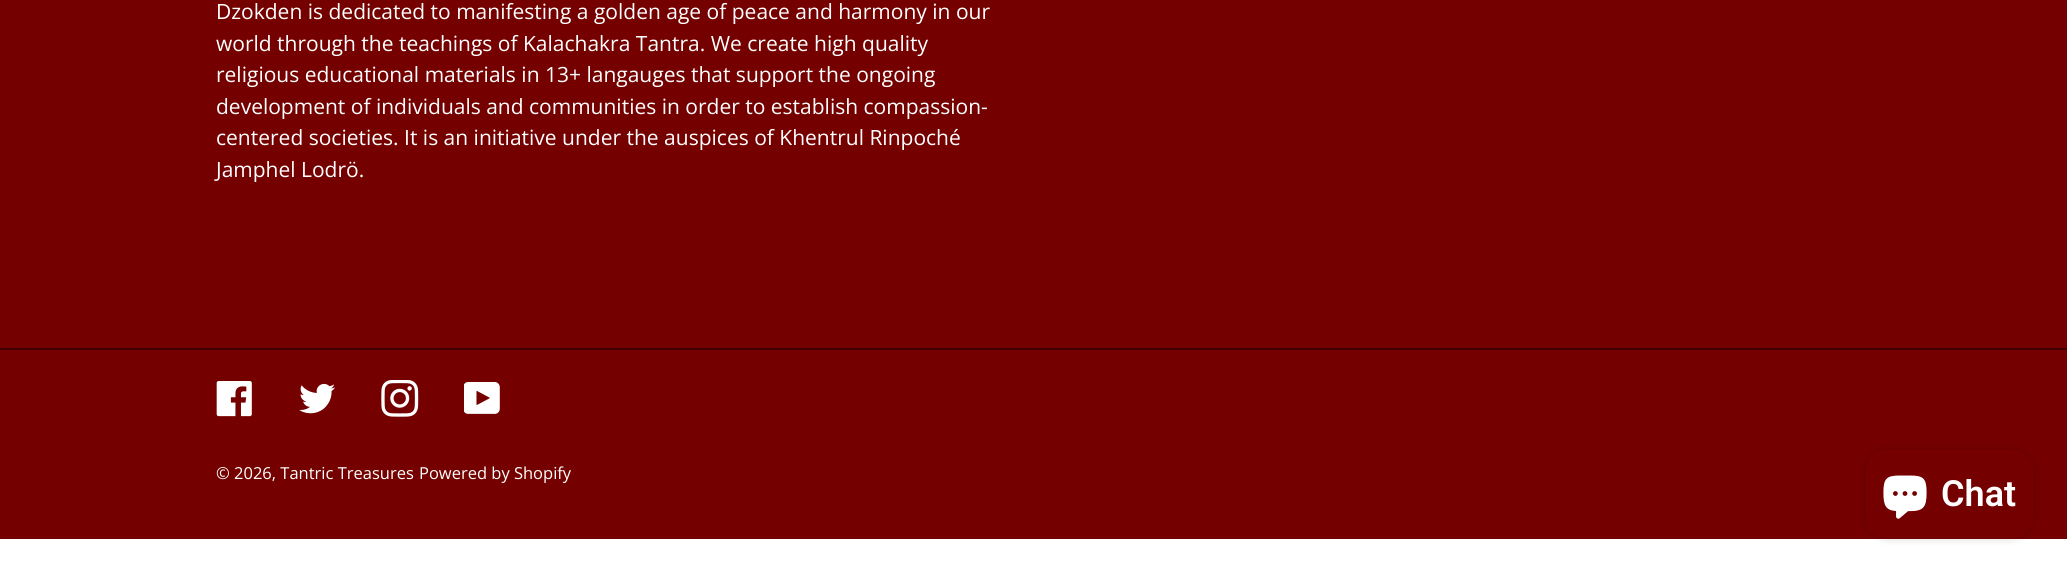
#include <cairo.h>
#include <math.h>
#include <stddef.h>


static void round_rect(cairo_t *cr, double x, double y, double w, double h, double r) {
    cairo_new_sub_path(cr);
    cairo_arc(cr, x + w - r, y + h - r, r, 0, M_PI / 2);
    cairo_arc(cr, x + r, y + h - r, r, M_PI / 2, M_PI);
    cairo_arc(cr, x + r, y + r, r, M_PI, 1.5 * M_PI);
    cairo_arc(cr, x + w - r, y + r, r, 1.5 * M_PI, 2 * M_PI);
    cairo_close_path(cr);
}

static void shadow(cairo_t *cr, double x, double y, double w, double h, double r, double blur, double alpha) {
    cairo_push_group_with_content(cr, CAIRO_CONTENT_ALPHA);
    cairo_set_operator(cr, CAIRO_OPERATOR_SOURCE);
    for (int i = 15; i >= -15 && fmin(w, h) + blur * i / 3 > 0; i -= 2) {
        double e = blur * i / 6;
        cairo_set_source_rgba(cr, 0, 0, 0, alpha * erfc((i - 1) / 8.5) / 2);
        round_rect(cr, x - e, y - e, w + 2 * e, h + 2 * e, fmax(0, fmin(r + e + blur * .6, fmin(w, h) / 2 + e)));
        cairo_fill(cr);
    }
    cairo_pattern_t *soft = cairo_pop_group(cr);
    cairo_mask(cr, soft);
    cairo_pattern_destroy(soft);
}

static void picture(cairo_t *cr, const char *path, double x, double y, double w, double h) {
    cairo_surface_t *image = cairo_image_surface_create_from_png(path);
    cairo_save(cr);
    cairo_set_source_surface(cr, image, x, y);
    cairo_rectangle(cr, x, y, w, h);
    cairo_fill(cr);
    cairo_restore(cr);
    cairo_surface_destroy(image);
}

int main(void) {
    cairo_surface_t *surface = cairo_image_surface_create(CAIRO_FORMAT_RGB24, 2067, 570);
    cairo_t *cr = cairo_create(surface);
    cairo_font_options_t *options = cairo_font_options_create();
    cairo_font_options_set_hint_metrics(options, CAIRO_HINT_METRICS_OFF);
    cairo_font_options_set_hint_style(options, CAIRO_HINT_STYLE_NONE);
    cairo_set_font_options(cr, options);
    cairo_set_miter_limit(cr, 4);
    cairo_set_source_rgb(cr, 1, 1, 1);
    cairo_paint(cr);
    cairo_set_source_rgb(cr, 0.455, 0, 0);
    cairo_rectangle(cr, 0, 0, 2067, 539);
    cairo_fill(cr);
    cairo_select_font_face(cr, "Open Sans", CAIRO_FONT_SLANT_NORMAL, CAIRO_FONT_WEIGHT_NORMAL);
    cairo_set_font_size(cr, 21);
    cairo_set_source_rgb(cr, 1, 1, 1);
    cairo_move_to(cr, 216, 19);
    cairo_show_text(cr, "Dzokden is dedicated to manifesting a golden age of peace and harmony in our");
    cairo_move_to(cr, 216, 51);
    cairo_show_text(cr, "world through the teachings of Kalachakra Tantra. We create high quality");
    cairo_move_to(cr, 216, 82);
    cairo_show_text(cr, "religious educational materials in 13+ langauges that support the ongoing");
    cairo_move_to(cr, 216, 114);
    cairo_show_text(cr, "development of individuals and communities in order to establish compassion-");
    cairo_move_to(cr, 216, 145);
    cairo_show_text(cr, "centered societies. It is an initiative under the auspices of Khentrul Rinpoché");
    cairo_move_to(cr, 216, 177);
    cairo_show_text(cr, "Jamphel Lodrö.");
    cairo_set_source_rgb(cr, 0.255, 0, 0);
    cairo_rectangle(cr, 0, 348, 2067, 2);
    cairo_fill(cr);
    picture(cr, "img1.png", 216, 381, 36, 36);
    picture(cr, "img2.png", 299, 383, 36, 31);
    picture(cr, "img3.png", 381, 380, 38, 37);
    picture(cr, "img4.png", 464, 382, 36, 32);
    cairo_set_font_size(cr, 16.5);
    cairo_set_source_rgb(cr, 1, 1, 1);
    cairo_move_to(cr, 216, 479);
    cairo_show_text(cr, "© 2026, Tantric Treasures");
    cairo_move_to(cr, 419, 479);
    cairo_show_text(cr, "Powered by Shopify");
    cairo_set_source_rgb(cr, 0, 0, 0);
    shadow(cr, 1865, 449, 169, 90, 24, 4, 0.15);
    cairo_set_source_rgb(cr, 0.455, 0, 0);
    round_rect(cr, 1865, 449, 169, 90, 24);
    cairo_fill(cr);
    picture(cr, "img5.png", 1883, 475, 44, 44);
    cairo_select_font_face(cr, "Roboto SemiBold", CAIRO_FONT_SLANT_NORMAL, CAIRO_FONT_WEIGHT_NORMAL);
    cairo_set_font_size(cr, 36);
    cairo_set_source_rgb(cr, 1, 1, 1);
    cairo_move_to(cr, 1941, 506);
    cairo_show_text(cr, "Chat");
    cairo_surface_write_to_png(surface, "page.png");
    cairo_font_options_destroy(options);
    cairo_destroy(cr);
    cairo_surface_destroy(surface);
    return 0;
}
